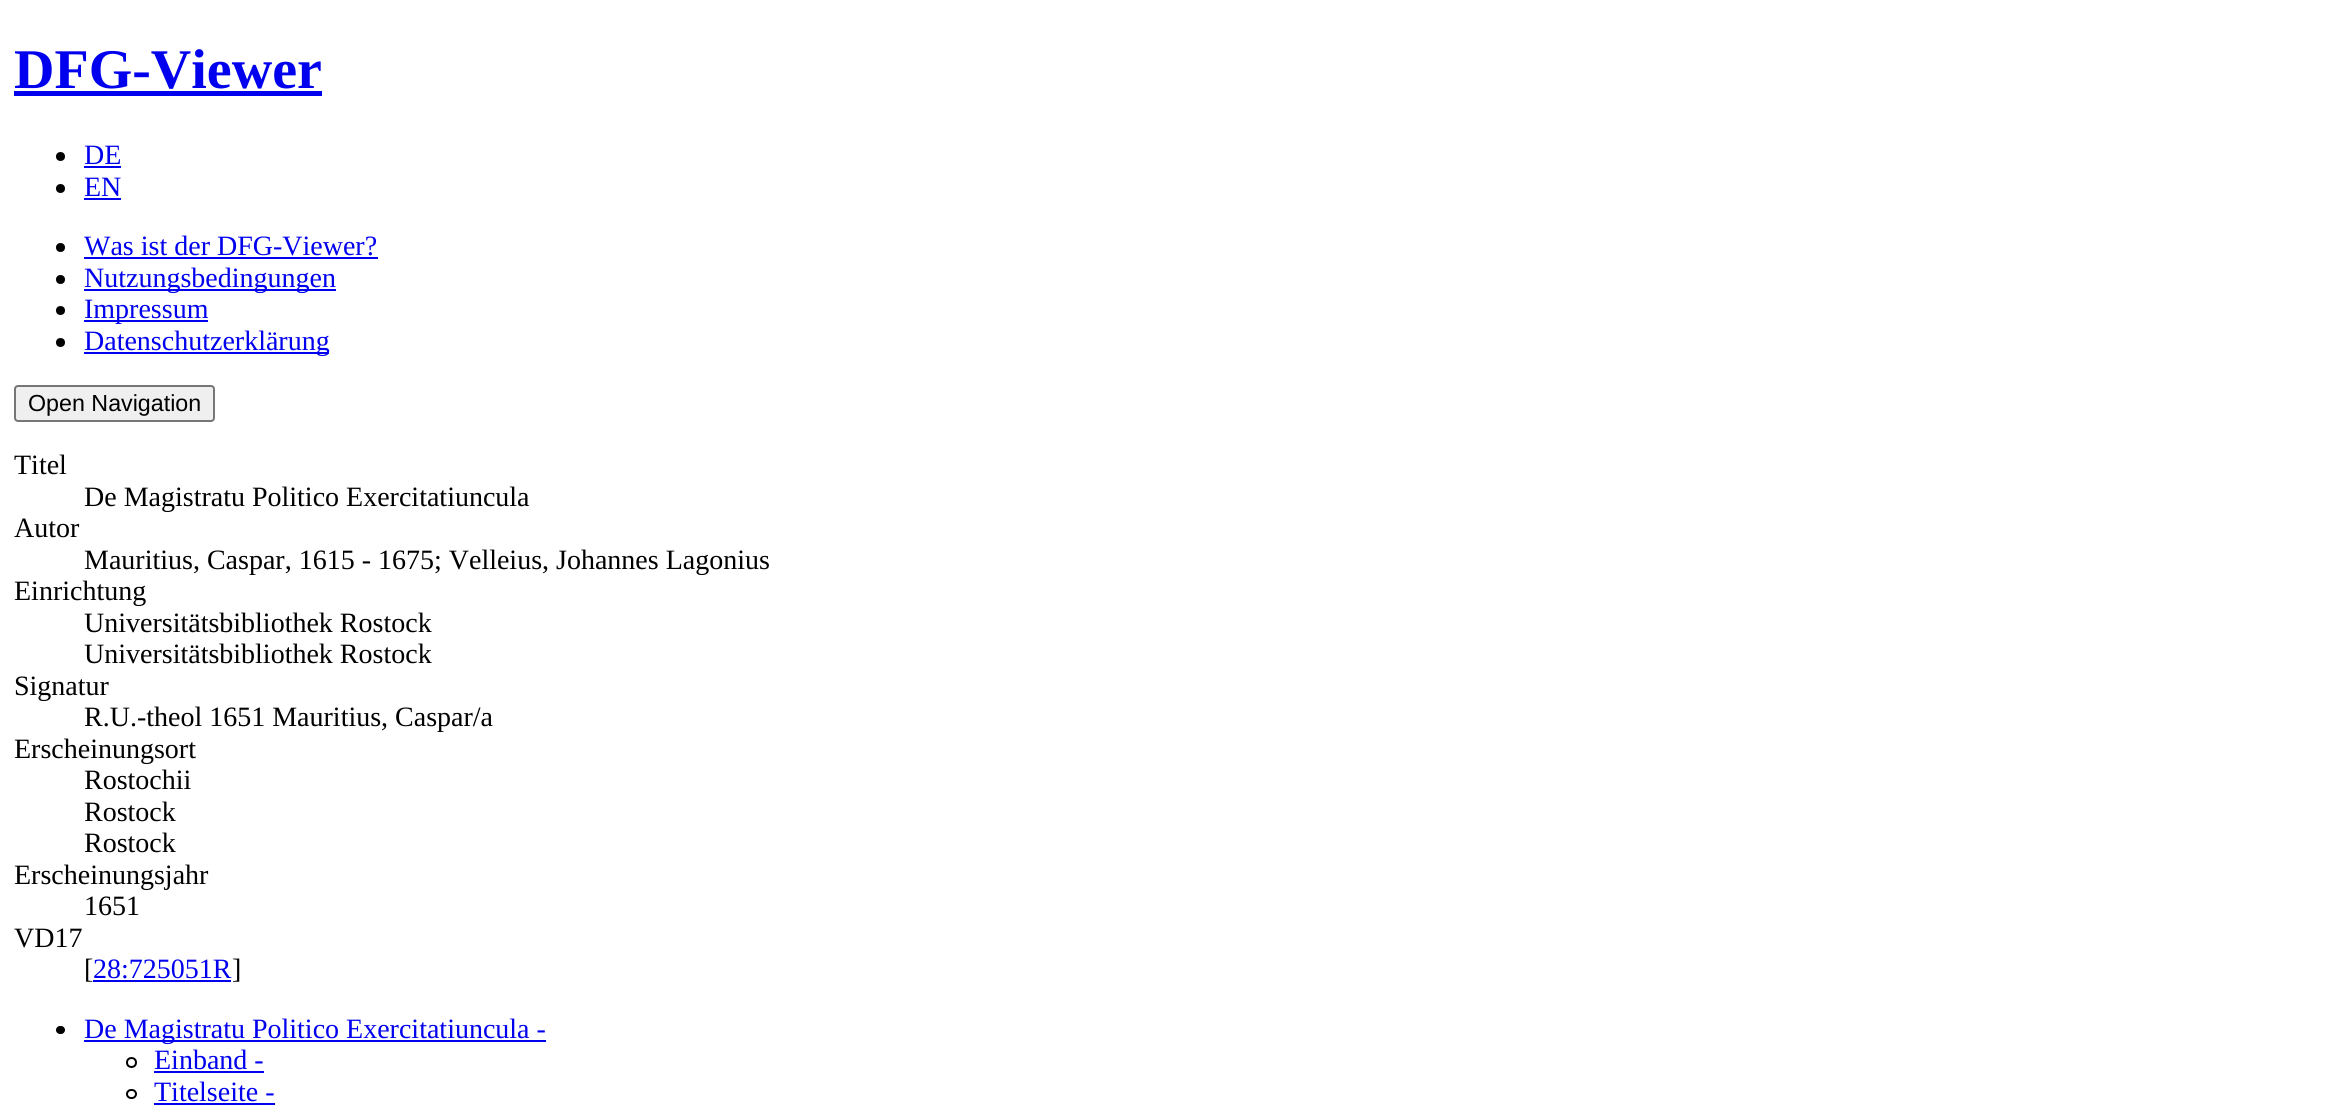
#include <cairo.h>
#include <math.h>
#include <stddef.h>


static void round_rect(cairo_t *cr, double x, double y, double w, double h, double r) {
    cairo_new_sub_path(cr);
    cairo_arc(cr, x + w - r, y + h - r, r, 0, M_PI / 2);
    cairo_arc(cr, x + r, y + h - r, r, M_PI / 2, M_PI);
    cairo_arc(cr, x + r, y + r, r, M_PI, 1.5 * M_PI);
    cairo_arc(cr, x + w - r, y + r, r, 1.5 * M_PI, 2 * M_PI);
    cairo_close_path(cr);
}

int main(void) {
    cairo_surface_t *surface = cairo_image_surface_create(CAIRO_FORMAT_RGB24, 2330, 1106);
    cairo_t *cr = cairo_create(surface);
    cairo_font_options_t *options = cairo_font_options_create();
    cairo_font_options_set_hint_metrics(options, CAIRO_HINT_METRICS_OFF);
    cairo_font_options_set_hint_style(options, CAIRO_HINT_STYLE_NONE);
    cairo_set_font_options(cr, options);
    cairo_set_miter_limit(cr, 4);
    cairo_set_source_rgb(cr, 1, 1, 1);
    cairo_paint(cr);
    cairo_select_font_face(cr, "Liberation Serif", CAIRO_FONT_SLANT_NORMAL, CAIRO_FONT_WEIGHT_BOLD);
    cairo_set_font_size(cr, 56);
    cairo_set_source_rgb(cr, 0, 0, 0.933);
    cairo_move_to(cr, 14, 88);
    cairo_show_text(cr, "DFG-Viewer");
    cairo_rectangle(cr, 14, 91, 308, 5);
    cairo_fill(cr);
    cairo_set_source_rgb(cr, 0, 0, 0);
    cairo_arc(cr, 60.5, 156.5, 4.5, 0, 2 * M_PI);
    cairo_fill(cr);
    cairo_select_font_face(cr, "Liberation Serif", CAIRO_FONT_SLANT_NORMAL, CAIRO_FONT_WEIGHT_NORMAL);
    cairo_set_font_size(cr, 28);
    cairo_set_source_rgb(cr, 0, 0, 0.933);
    cairo_move_to(cr, 84, 164);
    cairo_show_text(cr, "DE");
    cairo_rectangle(cr, 84, 166, 37, 2);
    cairo_fill(cr);
    cairo_set_source_rgb(cr, 0, 0, 0);
    cairo_arc(cr, 60.5, 188.5, 4.5, 0, 2 * M_PI);
    cairo_fill(cr);
    cairo_set_source_rgb(cr, 0, 0, 0.933);
    cairo_move_to(cr, 84, 196);
    cairo_show_text(cr, "EN");
    cairo_rectangle(cr, 84, 198, 37, 2);
    cairo_fill(cr);
    cairo_set_source_rgb(cr, 0, 0, 0);
    cairo_arc(cr, 60.5, 247.5, 4.5, 0, 2 * M_PI);
    cairo_fill(cr);
    cairo_set_source_rgb(cr, 0, 0, 0.933);
    cairo_move_to(cr, 84, 255);
    cairo_show_text(cr, "Was ist der DFG-Viewer?");
    cairo_rectangle(cr, 84, 257, 294, 2);
    cairo_fill(cr);
    cairo_set_source_rgb(cr, 0, 0, 0);
    cairo_arc(cr, 60.5, 279.5, 4.5, 0, 2 * M_PI);
    cairo_fill(cr);
    cairo_set_source_rgb(cr, 0, 0, 0.933);
    cairo_rectangle(cr, 84, 289, 252, 2);
    cairo_fill(cr);
    cairo_move_to(cr, 84, 287);
    cairo_show_text(cr, "Nutzungsbedingungen");
    cairo_set_source_rgb(cr, 0, 0, 0);
    cairo_new_path(cr);
    cairo_arc(cr, 60.5, 310.5, 4.5, 0, 2 * M_PI);
    cairo_fill(cr);
    cairo_set_source_rgb(cr, 0, 0, 0.933);
    cairo_rectangle(cr, 84, 320, 124, 2);
    cairo_fill(cr);
    cairo_move_to(cr, 84, 318);
    cairo_show_text(cr, "Impressum");
    cairo_set_source_rgb(cr, 0, 0, 0);
    cairo_new_path(cr);
    cairo_arc(cr, 60.5, 342.5, 4.5, 0, 2 * M_PI);
    cairo_fill(cr);
    cairo_set_source_rgb(cr, 0, 0, 0.933);
    cairo_rectangle(cr, 84, 352, 245, 2);
    cairo_fill(cr);
    cairo_move_to(cr, 84, 350);
    cairo_show_text(cr, "Datenschutzerklärung");
    cairo_set_source_rgb(cr, 0.937, 0.937, 0.937);
    round_rect(cr, 15, 386, 199, 35, 3);
    cairo_fill_preserve(cr);
    cairo_set_source_rgb(cr, 0.463, 0.463, 0.463);
    cairo_stroke(cr);
    cairo_select_font_face(cr, "Liberation Sans", CAIRO_FONT_SLANT_NORMAL, CAIRO_FONT_WEIGHT_NORMAL);
    cairo_set_font_size(cr, 23.25);
    cairo_set_source_rgb(cr, 0, 0, 0);
    cairo_move_to(cr, 28, 411);
    cairo_show_text(cr, "Open Navigation");
    cairo_select_font_face(cr, "Liberation Serif", CAIRO_FONT_SLANT_NORMAL, CAIRO_FONT_WEIGHT_NORMAL);
    cairo_set_font_size(cr, 28);
    cairo_move_to(cr, 14, 474);
    cairo_show_text(cr, "Titel");
    cairo_move_to(cr, 84, 506);
    cairo_show_text(cr, "De Magistratu Politico Exercitatiuncula");
    cairo_move_to(cr, 14, 537);
    cairo_show_text(cr, "Autor");
    cairo_move_to(cr, 84, 569);
    cairo_show_text(cr, "Mauritius, Caspar, 1615 - 1675; Velleius, Johannes Lagonius");
    cairo_move_to(cr, 14, 600);
    cairo_show_text(cr, "Einrichtung");
    cairo_move_to(cr, 84, 632);
    cairo_show_text(cr, "Universitätsbibliothek Rostock");
    cairo_move_to(cr, 84, 663);
    cairo_show_text(cr, "Universitätsbibliothek Rostock");
    cairo_move_to(cr, 14, 695);
    cairo_show_text(cr, "Signatur");
    cairo_move_to(cr, 84, 726);
    cairo_show_text(cr, "R.U.-theol 1651 Mauritius, Caspar/a");
    cairo_move_to(cr, 14, 758);
    cairo_show_text(cr, "Erscheinungsort");
    cairo_move_to(cr, 84, 789);
    cairo_show_text(cr, "Rostochii");
    cairo_move_to(cr, 84, 821);
    cairo_show_text(cr, "Rostock");
    cairo_move_to(cr, 84, 852);
    cairo_show_text(cr, "Rostock");
    cairo_move_to(cr, 14, 884);
    cairo_show_text(cr, "Erscheinungsjahr");
    cairo_move_to(cr, 84, 915);
    cairo_show_text(cr, "1651");
    cairo_move_to(cr, 14, 947);
    cairo_show_text(cr, "VD17");
    cairo_move_to(cr, 84, 978);
    cairo_show_text(cr, "[");
    cairo_set_source_rgb(cr, 0, 0, 0.933);
    cairo_move_to(cr, 93, 978);
    cairo_show_text(cr, "28:725051R");
    cairo_rectangle(cr, 93, 980, 138, 2);
    cairo_fill(cr);
    cairo_set_source_rgb(cr, 0, 0, 0);
    cairo_move_to(cr, 232, 978);
    cairo_show_text(cr, "]");
    round_rect(cr, 56, 1026, 9, 8, 4);
    cairo_fill(cr);
    cairo_set_source_rgb(cr, 0, 0, 0.933);
    cairo_rectangle(cr, 84, 1040, 462, 2);
    cairo_fill(cr);
    cairo_move_to(cr, 84, 1038);
    cairo_show_text(cr, "De Magistratu Politico Exercitatiuncula -");
    cairo_new_path(cr);
    cairo_arc(cr, 131.5, 1062.5, 4.5, 0, 2 * M_PI);
    cairo_set_source_rgb(cr, 0, 0, 0);
    cairo_stroke(cr);
    cairo_set_source_rgb(cr, 0, 0, 0.933);
    cairo_move_to(cr, 154, 1069);
    cairo_show_text(cr, "Einband -");
    cairo_rectangle(cr, 154, 1071, 110, 2);
    cairo_fill(cr);
    round_rect(cr, 127, 1090, 9, 8, 4);
    cairo_set_source_rgb(cr, 0, 0, 0);
    cairo_stroke(cr);
    cairo_set_source_rgb(cr, 0, 0, 0.933);
    cairo_move_to(cr, 154, 1101);
    cairo_show_text(cr, "Titelseite -");
    cairo_rectangle(cr, 154, 1103, 121, 2);
    cairo_fill(cr);
    cairo_surface_write_to_png(surface, "page.png");
    cairo_font_options_destroy(options);
    cairo_destroy(cr);
    cairo_surface_destroy(surface);
    return 0;
}
